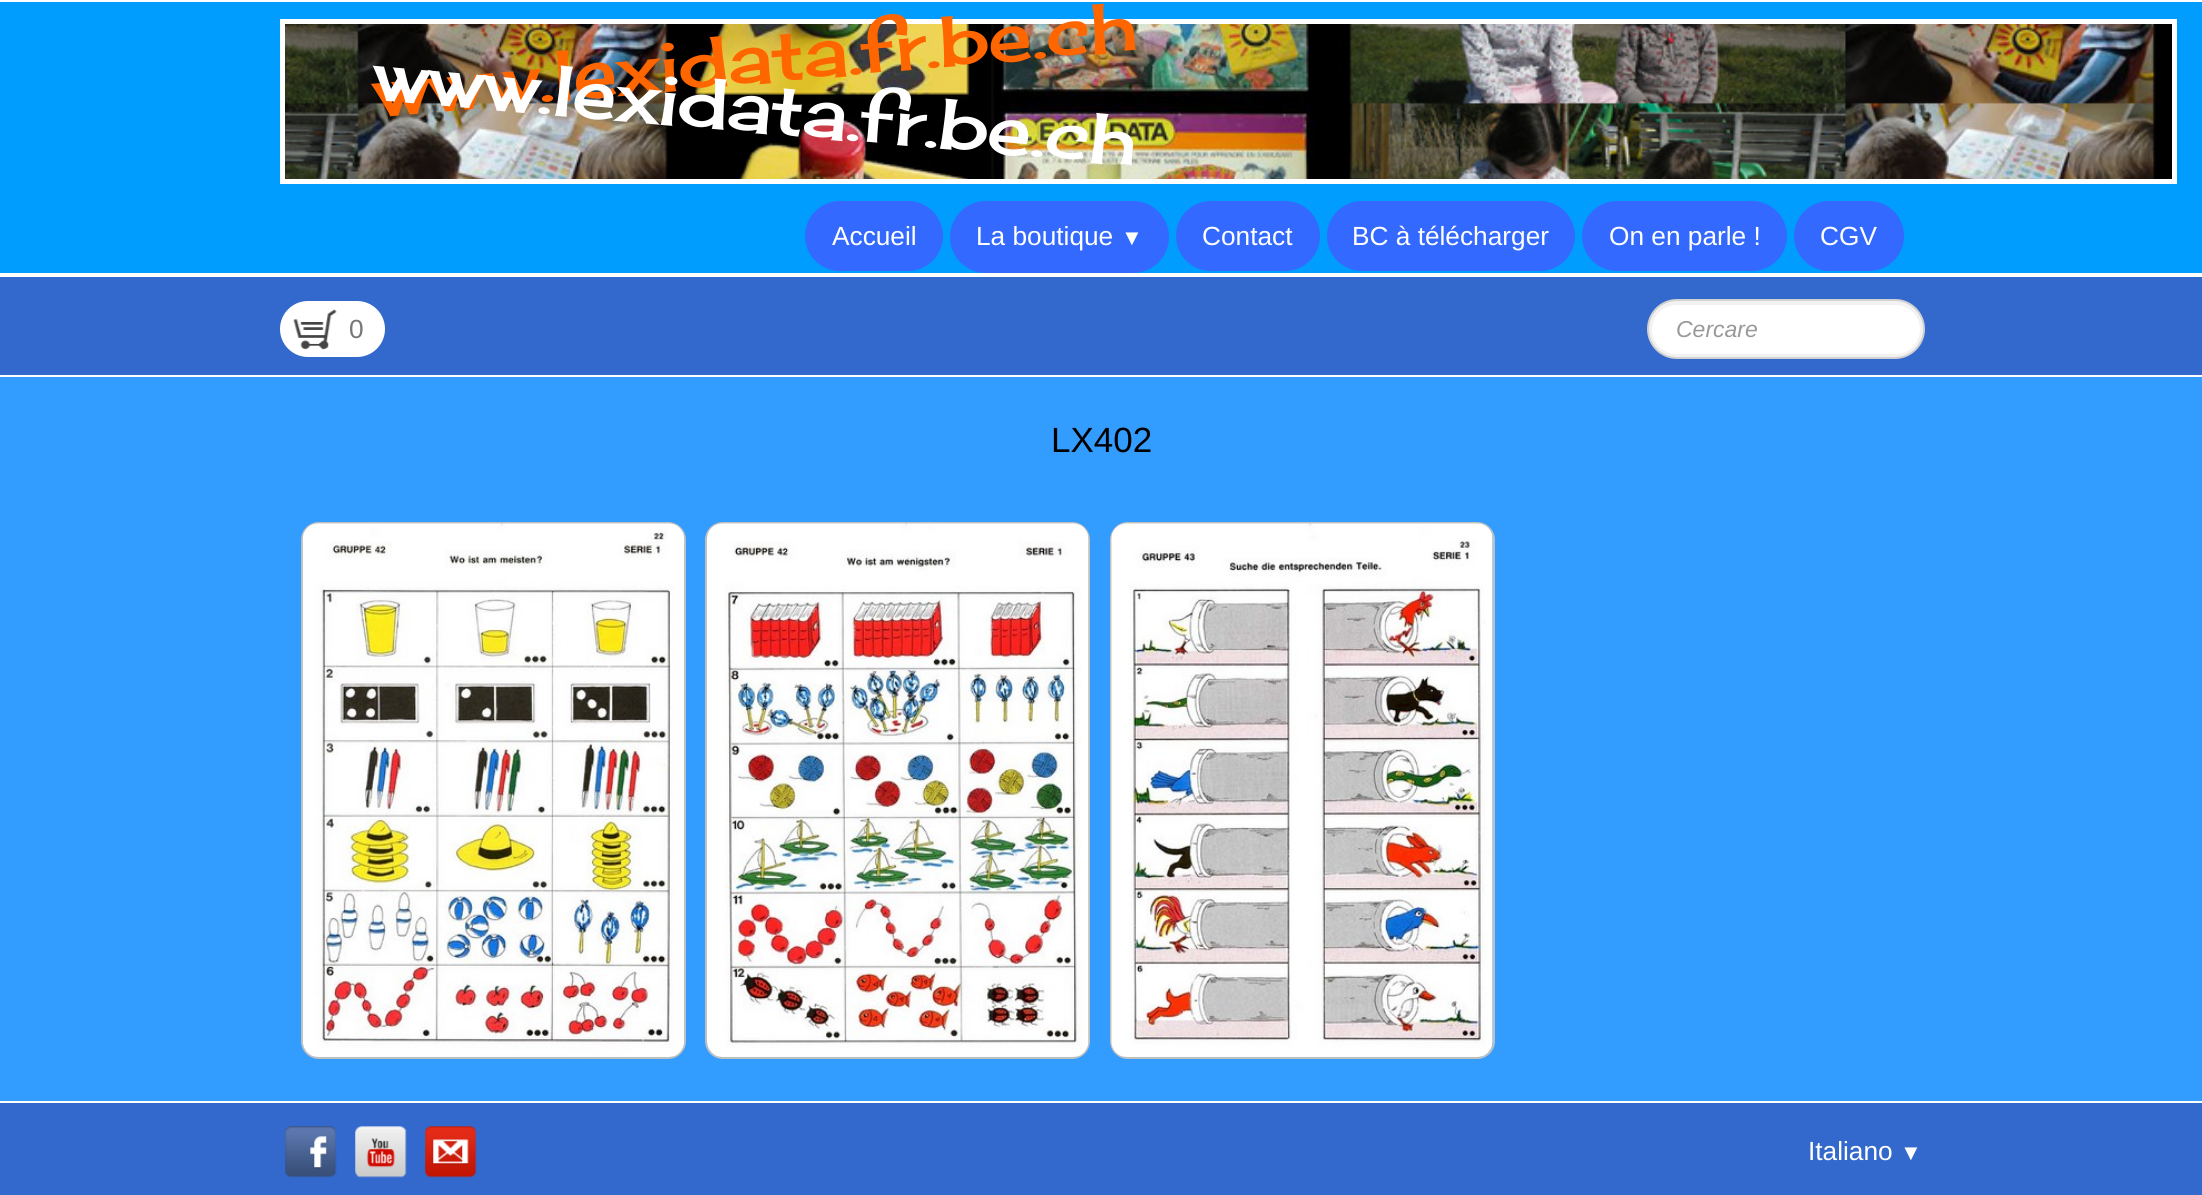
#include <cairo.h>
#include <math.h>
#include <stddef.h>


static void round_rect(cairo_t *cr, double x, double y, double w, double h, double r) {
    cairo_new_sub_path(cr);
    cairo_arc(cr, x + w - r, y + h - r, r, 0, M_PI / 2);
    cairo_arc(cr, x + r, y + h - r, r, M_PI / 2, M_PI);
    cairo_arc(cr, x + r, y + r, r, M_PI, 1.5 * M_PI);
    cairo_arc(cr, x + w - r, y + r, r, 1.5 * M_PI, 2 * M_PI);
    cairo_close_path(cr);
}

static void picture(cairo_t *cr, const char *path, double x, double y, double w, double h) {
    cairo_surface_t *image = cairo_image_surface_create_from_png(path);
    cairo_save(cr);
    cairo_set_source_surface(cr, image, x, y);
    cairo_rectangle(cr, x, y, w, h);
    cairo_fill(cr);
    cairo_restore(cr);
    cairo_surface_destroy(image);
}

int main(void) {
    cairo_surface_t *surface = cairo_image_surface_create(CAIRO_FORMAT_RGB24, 2202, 1195);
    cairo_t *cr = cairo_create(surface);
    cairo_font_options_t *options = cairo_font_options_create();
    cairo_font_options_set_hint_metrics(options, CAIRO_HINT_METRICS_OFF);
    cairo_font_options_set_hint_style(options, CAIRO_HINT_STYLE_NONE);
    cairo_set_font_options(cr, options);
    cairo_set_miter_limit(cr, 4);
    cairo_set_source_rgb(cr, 0, 0.616, 1);
    cairo_paint(cr);
    cairo_set_source_rgb(cr, 1, 1, 1);
    cairo_rectangle(cr, 0, 0, 2202, 2);
    cairo_fill(cr);
    cairo_rectangle(cr, 0, 273, 2202, 4);
    cairo_fill(cr);
    picture(cr, "img1.png", 285, 24, 1887, 155);
    cairo_rectangle(cr, 282.5, 21.5, 1892, 160);
    cairo_set_line_width(cr, 5);
    cairo_stroke(cr);
    cairo_select_font_face(cr, "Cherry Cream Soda", CAIRO_FONT_SLANT_NORMAL, CAIRO_FONT_WEIGHT_NORMAL);
    cairo_set_font_size(cr, 70);
    cairo_set_source_rgb(cr, 1, 0.4, 0);
    cairo_save(cr);
    cairo_translate(cr, 375, 117);
    cairo_rotate(cr, -5 * M_PI / 180);
    cairo_move_to(cr, 0, 0);
    cairo_show_text(cr, "www.lexidata.fr.be.ch");
    cairo_restore(cr);
    cairo_set_source_rgb(cr, 1, 1, 1);
    cairo_save(cr);
    cairo_translate(cr, 371, 99);
    cairo_rotate(cr, 5 * M_PI / 180);
    cairo_move_to(cr, 0, 0);
    cairo_show_text(cr, "www.lexidata.fr.be.ch");
    cairo_restore(cr);
    cairo_set_source_rgb(cr, 0.2, 0.412, 1);
    round_rect(cr, 805, 201, 138, 70, 35);
    cairo_fill(cr);
    cairo_select_font_face(cr, "Liberation Sans", CAIRO_FONT_SLANT_NORMAL, CAIRO_FONT_WEIGHT_NORMAL);
    cairo_set_font_size(cr, 26.25);
    cairo_set_source_rgb(cr, 1, 1, 1);
    cairo_move_to(cr, 832, 245);
    cairo_show_text(cr, "Accueil");
    cairo_set_source_rgb(cr, 0.2, 0.412, 1);
    round_rect(cr, 950, 201, 219, 72, 36);
    cairo_fill(cr);
    cairo_set_source_rgb(cr, 1, 1, 1);
    cairo_move_to(cr, 976, 245);
    cairo_show_text(cr, "La boutique");
    cairo_set_font_size(cr, 22);
    cairo_move_to(cr, 1121, 245);
    cairo_show_text(cr, "▼");
    cairo_set_source_rgb(cr, 0.2, 0.412, 1);
    round_rect(cr, 1176, 201, 144, 70, 35);
    cairo_fill(cr);
    cairo_set_font_size(cr, 26.25);
    cairo_set_source_rgb(cr, 1, 1, 1);
    cairo_move_to(cr, 1202, 245);
    cairo_show_text(cr, "Contact");
    cairo_set_source_rgb(cr, 0.2, 0.412, 1);
    round_rect(cr, 1327, 201, 248, 70, 35);
    cairo_fill(cr);
    cairo_set_source_rgb(cr, 1, 1, 1);
    cairo_move_to(cr, 1352, 245);
    cairo_show_text(cr, "BC à télécharger");
    cairo_set_source_rgb(cr, 0.2, 0.412, 1);
    round_rect(cr, 1582, 201, 205, 70, 35);
    cairo_fill(cr);
    cairo_set_source_rgb(cr, 1, 1, 1);
    cairo_move_to(cr, 1609, 245);
    cairo_show_text(cr, "On en parle !");
    cairo_set_source_rgb(cr, 0.2, 0.412, 1);
    round_rect(cr, 1794, 201, 110, 70, 35);
    cairo_fill(cr);
    cairo_set_source_rgb(cr, 1, 1, 1);
    cairo_move_to(cr, 1820, 245);
    cairo_show_text(cr, "CGV");
    cairo_set_source_rgb(cr, 0.2, 0.612, 1);
    cairo_rectangle(cr, 0, 377, 2202, 724);
    cairo_fill(cr);
    cairo_set_source_rgb(cr, 0.2, 0.412, 0.8);
    cairo_rectangle(cr, 0, 277, 2202, 98);
    cairo_fill(cr);
    cairo_set_source_rgb(cr, 1, 1, 1);
    cairo_rectangle(cr, 0, 375, 2202, 2);
    cairo_fill(cr);
    round_rect(cr, 280, 301, 105, 56, 28);
    cairo_fill(cr);
    picture(cr, "img2.png", 293, 309, 44, 41);
    cairo_set_source_rgb(cr, 0.467, 0.467, 0.467);
    cairo_move_to(cr, 349, 338);
    cairo_show_text(cr, "0");
    cairo_set_source_rgb(cr, 0.949, 0.949, 0.949);
    round_rect(cr, 1648, 300, 276, 58, 29);
    cairo_fill_preserve(cr);
    cairo_set_source_rgb(cr, 0.82, 0.82, 0.82);
    cairo_set_line_width(cr, 2);
    cairo_stroke(cr);
    cairo_set_source_rgb(cr, 1, 1, 1);
    round_rect(cr, 1652, 305, 268, 49, 24.5);
    cairo_fill(cr);
    cairo_select_font_face(cr, "Liberation Sans", CAIRO_FONT_SLANT_ITALIC, CAIRO_FONT_WEIGHT_NORMAL);
    cairo_set_font_size(cr, 23);
    cairo_set_source_rgb(cr, 0.6, 0.6, 0.6);
    cairo_move_to(cr, 1676, 337);
    cairo_show_text(cr, "Cercare");
    cairo_select_font_face(cr, "Liberation Sans", CAIRO_FONT_SLANT_NORMAL, CAIRO_FONT_WEIGHT_NORMAL);
    cairo_set_font_size(cr, 35);
    cairo_set_source_rgb(cr, 0, 0, 0);
    cairo_move_to(cr, 1051, 452);
    cairo_show_text(cr, "LX402");
    round_rect(cr, 302, 523, 383, 535, 17);
    cairo_set_source_rgb(cr, 0.749, 0.749, 0.749);
    cairo_stroke(cr);
    picture(cr, "img3.png", 302, 523, 383, 534);
    round_rect(cr, 706, 523, 383, 535, 17);
    cairo_stroke(cr);
    picture(cr, "img4.png", 707, 523, 382, 534);
    round_rect(cr, 1111, 523, 383, 535, 17);
    cairo_stroke(cr);
    picture(cr, "img5.png", 1111, 523, 382, 534);
    cairo_set_source_rgb(cr, 0.2, 0.412, 0.8);
    cairo_rectangle(cr, -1, 1102, 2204, 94);
    cairo_fill_preserve(cr);
    cairo_set_source_rgb(cr, 1, 1, 1);
    cairo_stroke(cr);
    picture(cr, "img6.png", 285, 1126, 52, 52);
    picture(cr, "img7.png", 355, 1126, 52, 52);
    picture(cr, "img8.png", 425, 1126, 52, 52);
    cairo_set_font_size(cr, 26.25);
    cairo_move_to(cr, 1808, 1160);
    cairo_show_text(cr, "Italiano");
    cairo_set_font_size(cr, 22);
    cairo_move_to(cr, 1900, 1160);
    cairo_show_text(cr, "▼");
    cairo_surface_write_to_png(surface, "page.png");
    cairo_font_options_destroy(options);
    cairo_destroy(cr);
    cairo_surface_destroy(surface);
    return 0;
}
